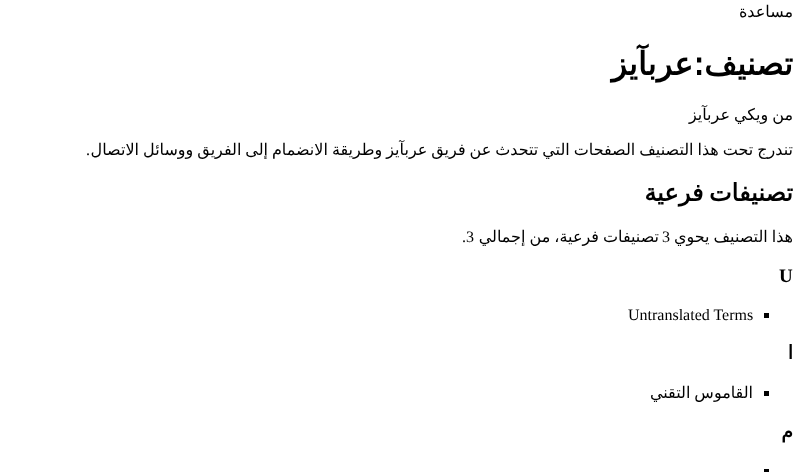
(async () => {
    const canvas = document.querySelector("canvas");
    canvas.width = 793;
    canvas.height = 472;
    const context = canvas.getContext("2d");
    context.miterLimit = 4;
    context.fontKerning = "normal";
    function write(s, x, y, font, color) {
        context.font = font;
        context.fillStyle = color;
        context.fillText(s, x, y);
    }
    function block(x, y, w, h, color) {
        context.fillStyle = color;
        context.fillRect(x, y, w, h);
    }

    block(0, 0, 793, 472, "rgb(255, 255, 255)");
    context.direction = "rtl";
    write("مساعدة", 793, 17, "16px DejaVu Sans", "rgb(0, 0, 0)");
    write("تصنيف:عربآيز", 793, 75, "bold 32px DejaVu Sans", "rgb(0, 0, 0)");
    context.wordSpacing = "-1.1px";
    write("من ويكي عربآيز", 793, 120, "16px DejaVu Sans", "rgb(0, 0, 0)");
    write("تندرج تحت هذا التصنيف الصفحات التي تتحدث عن فريق عربآيز وطريقة الانضمام إلى الفريق ووسائل الاتصال", 793, 155, "16px DejaVu Sans", "rgb(0, 0, 0)");
    context.wordSpacing = "0px";
    write(".", 90, 155, "16px Liberation Serif", "rgb(0, 0, 0)");
    context.wordSpacing = "-2px";
    write("تصنيفات فرعية", 793, 201, "bold 24px DejaVu Sans", "rgb(0, 0, 0)");
    context.wordSpacing = "-1.1px";
    write("هذا التصنيف يحوي", 793, 242, "16px DejaVu Sans", "rgb(0, 0, 0)");
    context.wordSpacing = "0px";
    context.direction = "ltr";
    write("3", 662, 242, "16px Liberation Serif", "rgb(0, 0, 0)");
    context.wordSpacing = "-1px";
    context.direction = "rtl";
    write("تصنيفات فرعية، من إجمالي", 659, 242, "16px DejaVu Sans", "rgb(0, 0, 0)");
    context.wordSpacing = "0px";
    context.direction = "ltr";
    write(".3", 462, 242, "16px Liberation Serif", "rgb(0, 0, 0)");
    write("U", 779, 282, "bold 19px Liberation Serif", "rgb(0, 0, 0)");
    block(764, 313, 5, 5, "rgb(0, 0, 0)");
    write("Untranslated Terms", 628, 320, "16px Liberation Serif", "rgb(0, 0, 0)");
    context.direction = "rtl";
    write("ا", 793, 359, "bold 19px DejaVu Sans", "rgb(0, 0, 0)");
    block(764, 391, 5, 5, "rgb(0, 0, 0)");
    context.wordSpacing = "-1.1px";
    write("القاموس التقني", 753, 398, "16px DejaVu Sans", "rgb(0, 0, 0)");
    context.wordSpacing = "0px";
    write("م", 793, 438, "bold 19px DejaVu Sans", "rgb(0, 0, 0)");
    block(764, 469, 5, 3, "rgb(0, 0, 0)");
})();
